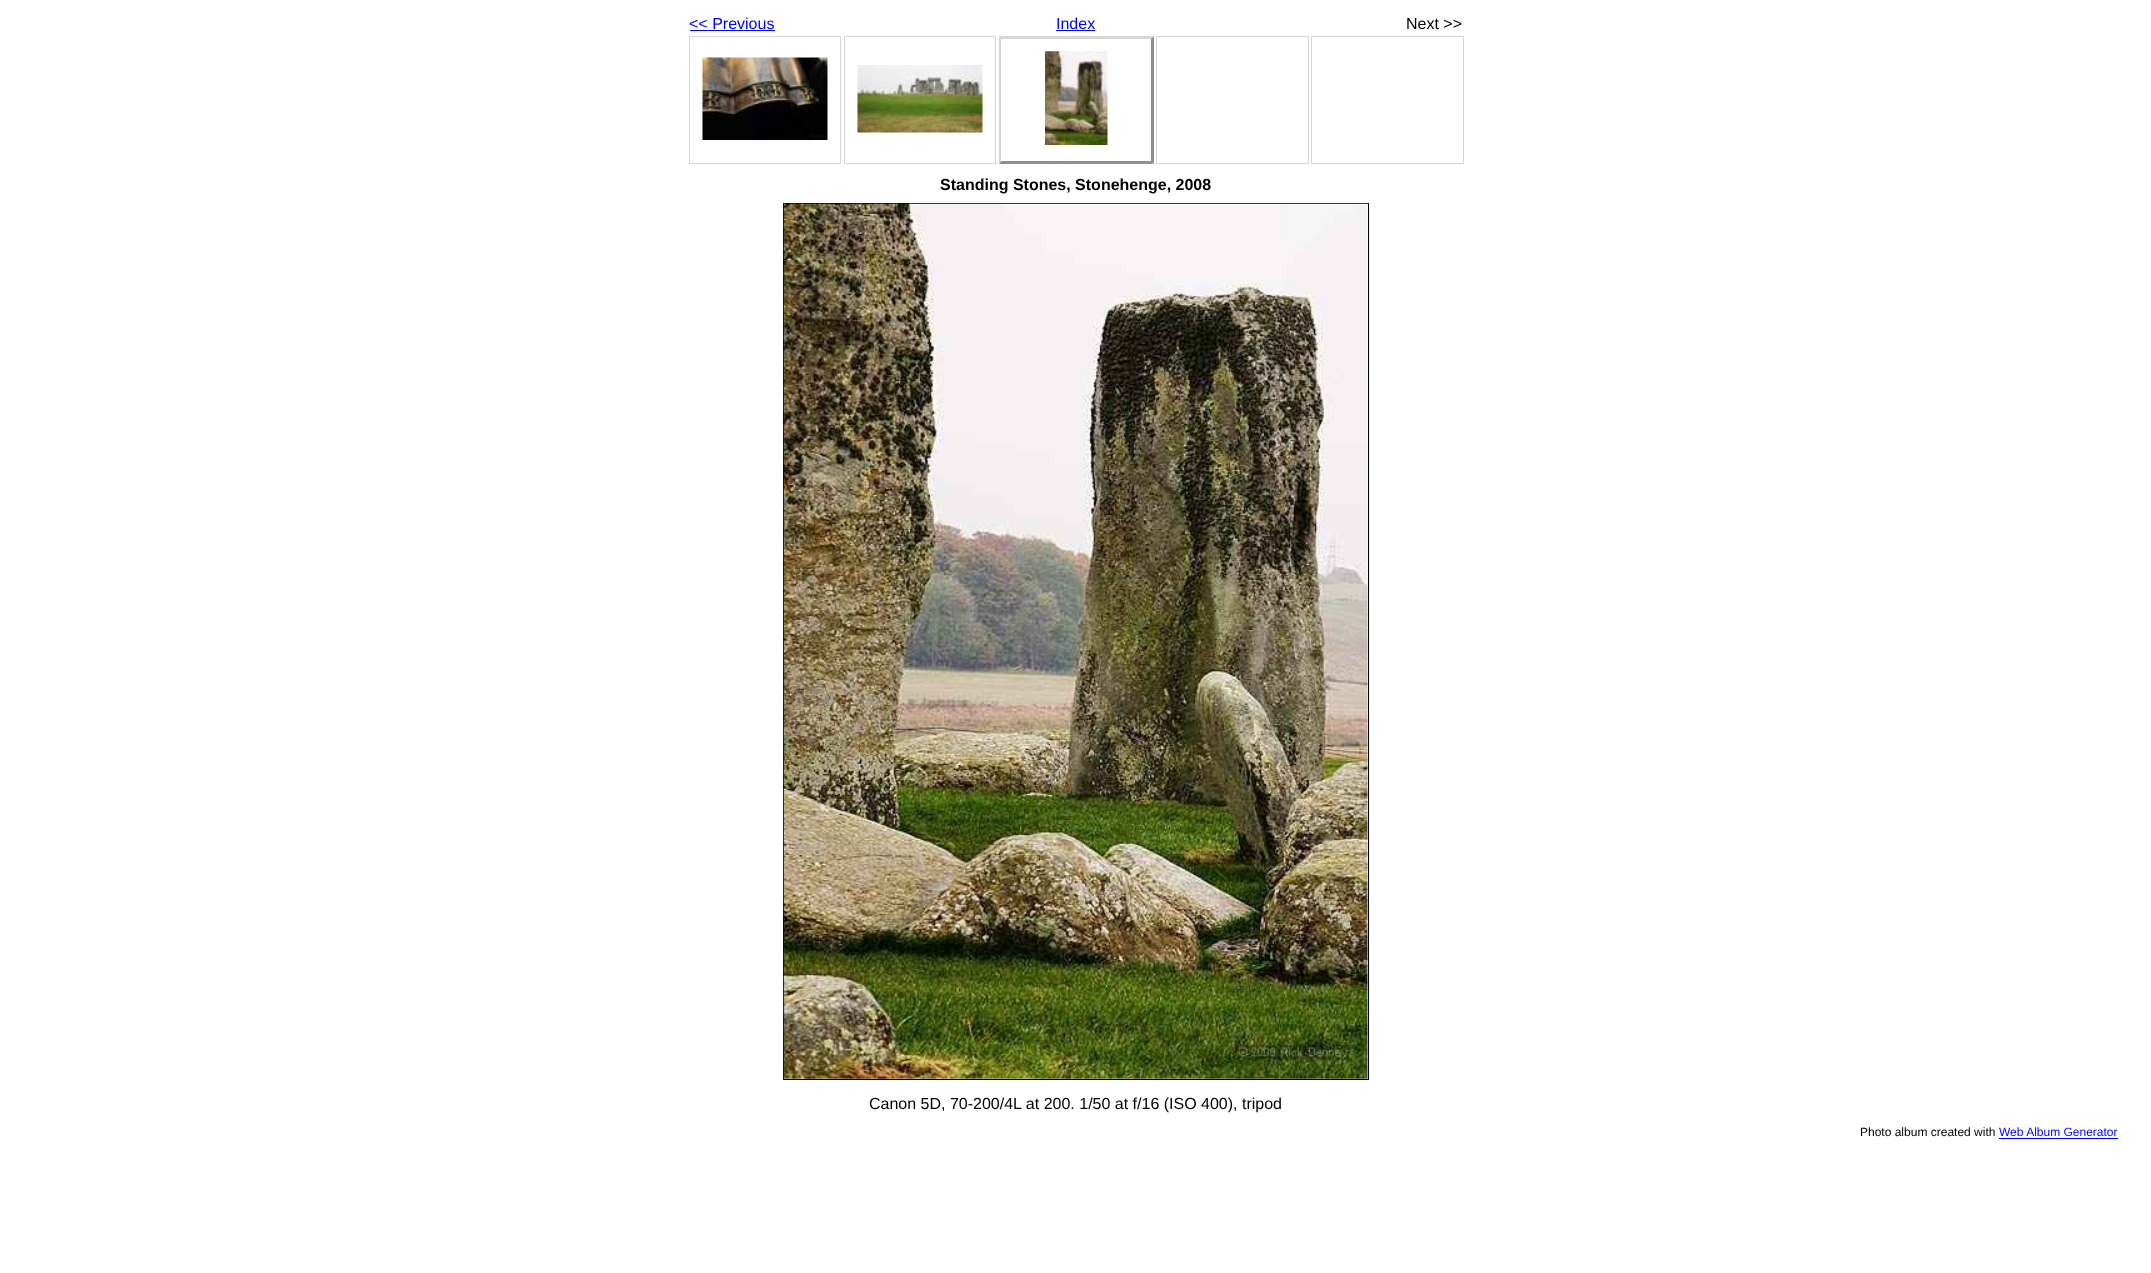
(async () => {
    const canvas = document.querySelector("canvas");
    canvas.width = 2151;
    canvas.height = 1273;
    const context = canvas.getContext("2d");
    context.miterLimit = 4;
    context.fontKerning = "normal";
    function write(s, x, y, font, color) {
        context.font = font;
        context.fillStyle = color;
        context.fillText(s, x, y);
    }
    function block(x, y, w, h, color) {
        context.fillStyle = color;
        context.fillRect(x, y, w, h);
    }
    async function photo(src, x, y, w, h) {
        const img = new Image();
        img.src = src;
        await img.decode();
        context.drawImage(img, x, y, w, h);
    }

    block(0, 0, 2151, 1273, "rgb(255, 255, 255)");
    write("<< Previous", 689, 29, "16px Liberation Sans", "rgb(0, 0, 255)");
    block(690, 30, 85, 1, "rgb(0, 0, 255)");
    write("Index", 1056, 29, "16px Liberation Sans", "rgb(0, 0, 255)");
    block(1056, 30, 39, 1, "rgb(0, 0, 255)");
    write("Next >>", 1406, 29, "16px Liberation Sans", "rgb(0, 0, 0)");
    context.strokeStyle = "rgb(215, 215, 215)";
    context.strokeRect(689.5, 36.5, 151, 127);
    await photo("media/1.png", 702, 57, 126, 83);
    context.strokeRect(844.5, 36.5, 151, 127);
    await photo("media/2.png", 857, 65, 126, 68);
    context.fillStyle = "rgb(215, 215, 215)";
    context.beginPath();
    context.moveTo(999, 36);
    context.lineTo(1154, 36);
    context.lineTo(1151, 39);
    context.lineTo(1001, 39);
    context.closePath();
    context.fill();
    context.fillStyle = "rgb(143, 143, 143)";
    context.beginPath();
    context.moveTo(1154, 36);
    context.lineTo(1154, 164);
    context.lineTo(1151, 161);
    context.lineTo(1151, 39);
    context.closePath();
    context.fill();
    context.beginPath();
    context.moveTo(1154, 164);
    context.lineTo(999, 164);
    context.lineTo(1001, 161);
    context.lineTo(1151, 161);
    context.closePath();
    context.fill();
    context.fillStyle = "rgb(215, 215, 215)";
    context.beginPath();
    context.moveTo(999, 164);
    context.lineTo(999, 36);
    context.lineTo(1001, 39);
    context.lineTo(1001, 161);
    context.closePath();
    context.fill();
    await photo("media/3.png", 1045, 51, 63, 94);
    context.strokeRect(1156.5, 36.5, 152, 127);
    context.strokeRect(1311.5, 36.5, 152, 127);
    write("Standing Stones, Stonehenge, 2008", 940, 190, "bold 16px Liberation Sans", "rgb(0, 0, 0)");
    context.strokeStyle = "rgb(0, 0, 0)";
    context.strokeRect(783.5, 203.5, 585, 876);
    await photo("media/4.png", 783, 203, 585, 876);
    write("Canon 5D, 70-200/4L at 200. 1/50 at f/16 (ISO 400), tripod", 869, 1109, "16px Liberation Sans", "rgb(0, 0, 0)");
    write("Photo album created with", 1860, 1136, "12px Liberation Sans", "rgb(0, 0, 0)");
    write("Web Album Generator", 1999, 1136, "12px Liberation Sans", "rgb(0, 0, 255)");
    block(1999, 1138, 119, 1, "rgb(0, 0, 255)");
})();
